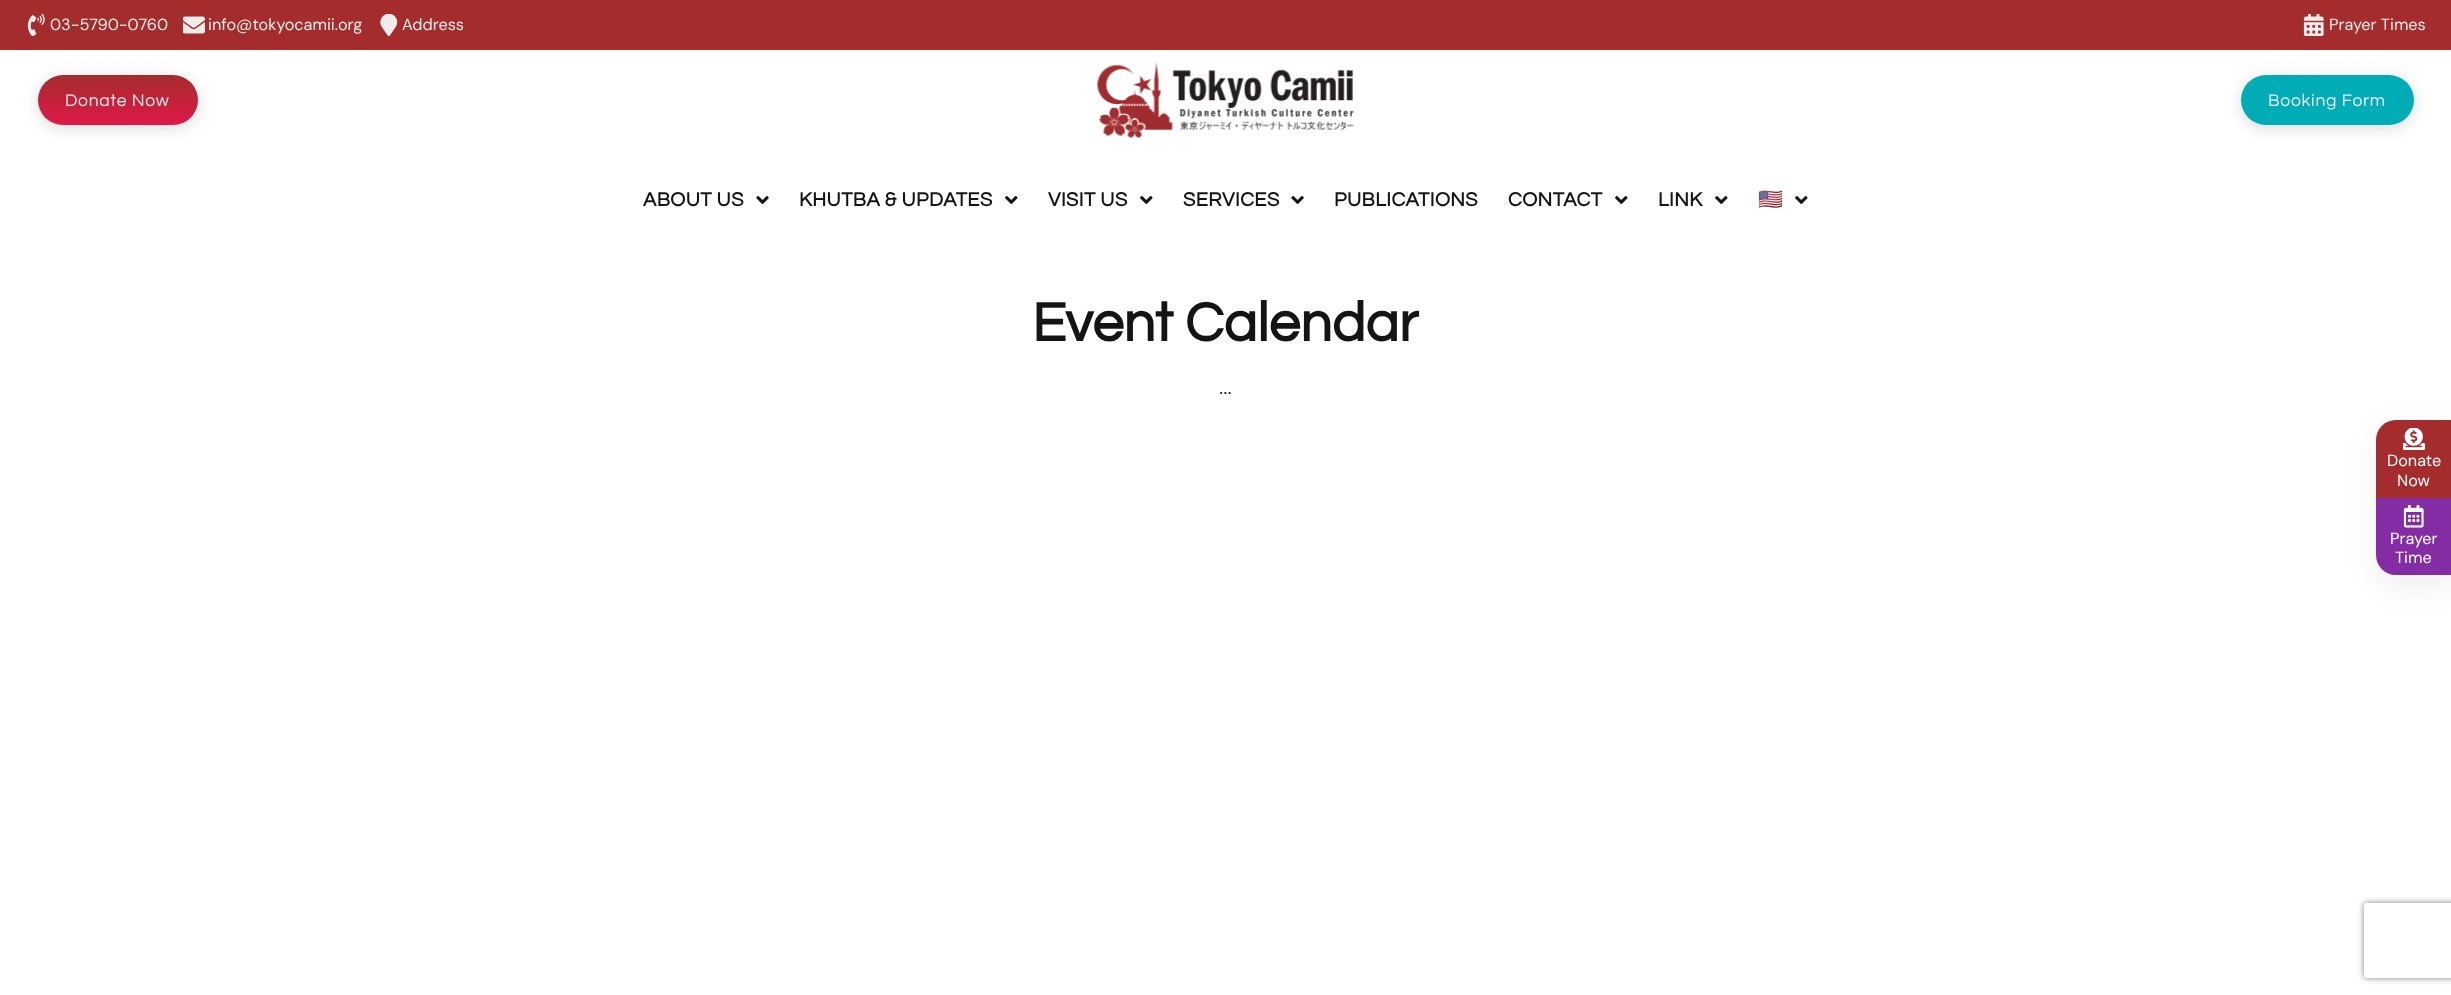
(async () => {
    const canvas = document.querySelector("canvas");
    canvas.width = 2451;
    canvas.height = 995;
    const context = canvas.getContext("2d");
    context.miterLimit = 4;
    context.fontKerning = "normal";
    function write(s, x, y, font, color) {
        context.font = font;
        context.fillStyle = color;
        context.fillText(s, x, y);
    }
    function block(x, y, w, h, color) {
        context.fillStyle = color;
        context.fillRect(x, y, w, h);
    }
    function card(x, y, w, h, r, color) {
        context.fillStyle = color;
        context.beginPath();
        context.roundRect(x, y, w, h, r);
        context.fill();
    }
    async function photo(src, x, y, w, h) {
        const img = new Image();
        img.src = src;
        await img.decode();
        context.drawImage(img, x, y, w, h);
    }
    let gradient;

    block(0, 0, 2451, 995, "rgb(255, 255, 255)");
    block(0, 0, 2451, 50, "rgb(164, 44, 44)");
    await photo("media/1.png", 27, 14, 18, 22);
    write("03-5790-0760", 50, 30, "16.25px DM Sans", "rgb(238, 237, 236)");
    await photo("media/2.png", 183, 16, 22, 18);
    write("info@tokyocamii.org", 208, 30, "16.25px DM Sans", "rgb(238, 237, 236)");
    await photo("media/3.png", 380, 14, 18, 22);
    write("Address", 402, 30, "16.25px DM Sans", "rgb(238, 237, 236)");
    await photo("media/4.png", 2303, 14, 21, 22);
    write("Prayer Times", 2329, 30, "16.25px DM Sans", "rgb(238, 237, 236)");
    context.fillStyle = "rgba(0, 0, 0, 0.14)";
    context.filter = "blur(7.5px)";
    context.beginPath();
    context.roundRect(38, 78, 160, 50, 25);
    context.fill();
    context.filter = "none";
    gradient = context.createLinearGradient(118, 75, 118, 125);
    gradient.addColorStop(0, "rgb(164, 44, 44)");
    gradient.addColorStop(1, "rgb(223, 24, 73)");
    context.fillStyle = gradient;
    context.beginPath();
    context.roundRect(38, 75, 160, 50, 25);
    context.fill();
    context.letterSpacing = "0.75px";
    write("Donate Now", 65, 106, "17.5px Questrial", "rgb(238, 237, 236)");
    await photo("media/5.png", 1097, 62, 257, 76);
    context.fillStyle = "rgba(0, 0, 0, 0.14)";
    context.filter = "blur(7.5px)";
    context.beginPath();
    context.roundRect(2241, 78, 173, 50, 25);
    context.fill();
    context.filter = "none";
    card(2241, 75, 173, 50, 25, "rgb(0, 173, 182)");
    write("Booking Form", 2268, 106, "17.5px Questrial", "rgb(238, 237, 236)");
    context.letterSpacing = "0.4px";
    write("ABOUT US", 643, 206, "bold 20px Questrial", "rgb(20, 20, 20)");
    await photo("media/6.png", 756, 196, 13, 8);
    write("KHUTBA & UPDATES", 799, 206, "bold 20px Questrial", "rgb(20, 20, 20)");
    await photo("media/7.png", 1005, 196, 13, 8);
    write("VISIT US", 1048, 206, "bold 20px Questrial", "rgb(20, 20, 20)");
    await photo("media/7.png", 1140, 196, 13, 8);
    write("SERVICES", 1183, 206, "bold 20px Questrial", "rgb(20, 20, 20)");
    await photo("media/6.png", 1291, 196, 13, 8);
    write("PUBLICATIONS", 1334, 206, "bold 20px Questrial", "rgb(20, 20, 20)");
    write("CONTACT", 1508, 206, "bold 20px Questrial", "rgb(20, 20, 20)");
    await photo("media/7.png", 1615, 196, 13, 8);
    write("LINK", 1658, 206, "bold 20px Questrial", "rgb(20, 20, 20)");
    await photo("media/7.png", 1715, 196, 13, 8);
    write("🇺🇸", 1758, 206, "bold 20px Noto Color Emoji", "rgb(20, 20, 20)");
    await photo("media/7.png", 1795, 196, 13, 8);
    context.letterSpacing = "0px";
    write("Event Calendar", 1032, 341, "bold 56.25px Questrial", "rgb(20, 20, 20)");
    write("...", 1219, 394, "20px Montserrat", "rgb(20, 20, 20)");
    context.fillStyle = "rgba(0, 0, 0, 0.06)";
    context.filter = "blur(14.5px)";
    context.beginPath();
    context.roundRect(2375, 426, 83, 163, 24);
    context.fill();
    context.filter = "none";
    context.fillStyle = "rgb(164, 44, 44)";
    context.beginPath();
    context.roundRect(2376, 420, 75, 78, [20, 0, 0, 0]);
    context.fill();
    await photo("media/8.png", 2403, 428, 22, 22);
    write("Donate", 2387, 466, "16.25px DM Sans", "rgb(255, 255, 255)");
    write("Now", 2397, 486, "16.25px DM Sans", "rgb(255, 255, 255)");
    context.fillStyle = "rgb(132, 44, 164)";
    context.beginPath();
    context.roundRect(2376, 498, 75, 77, [0, 0, 0, 20]);
    context.fill();
    await photo("media/9.png", 2403, 505, 21, 23);
    write("Prayer", 2390, 544, "16.25px DM Sans", "rgb(255, 255, 255)");
    write("Time", 2395, 563, "16.25px DM Sans", "rgb(255, 255, 255)");
    context.save();
    context.beginPath();
    context.moveTo(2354, 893);
    context.lineTo(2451, 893);
    context.lineTo(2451, 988);
    context.lineTo(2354, 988);
    context.closePath();
    context.moveTo(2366.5, 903);
    context.lineTo(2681.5, 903);
    context.bezierCurveTo(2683, 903, 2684, 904, 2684, 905.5);
    context.lineTo(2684, 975.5);
    context.bezierCurveTo(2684, 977, 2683, 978, 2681.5, 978);
    context.lineTo(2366.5, 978);
    context.bezierCurveTo(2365, 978, 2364, 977, 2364, 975.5);
    context.lineTo(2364, 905.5);
    context.bezierCurveTo(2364, 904, 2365, 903, 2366.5, 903);
    context.closePath();
    context.clip("evenodd");
    context.fillStyle = "rgb(128, 128, 128)";
    context.filter = "blur(3px)";
    context.beginPath();
    context.roundRect(2364, 903, 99, 75, 2.5);
    context.fill();
    context.filter = "none";
    context.restore();
})();
